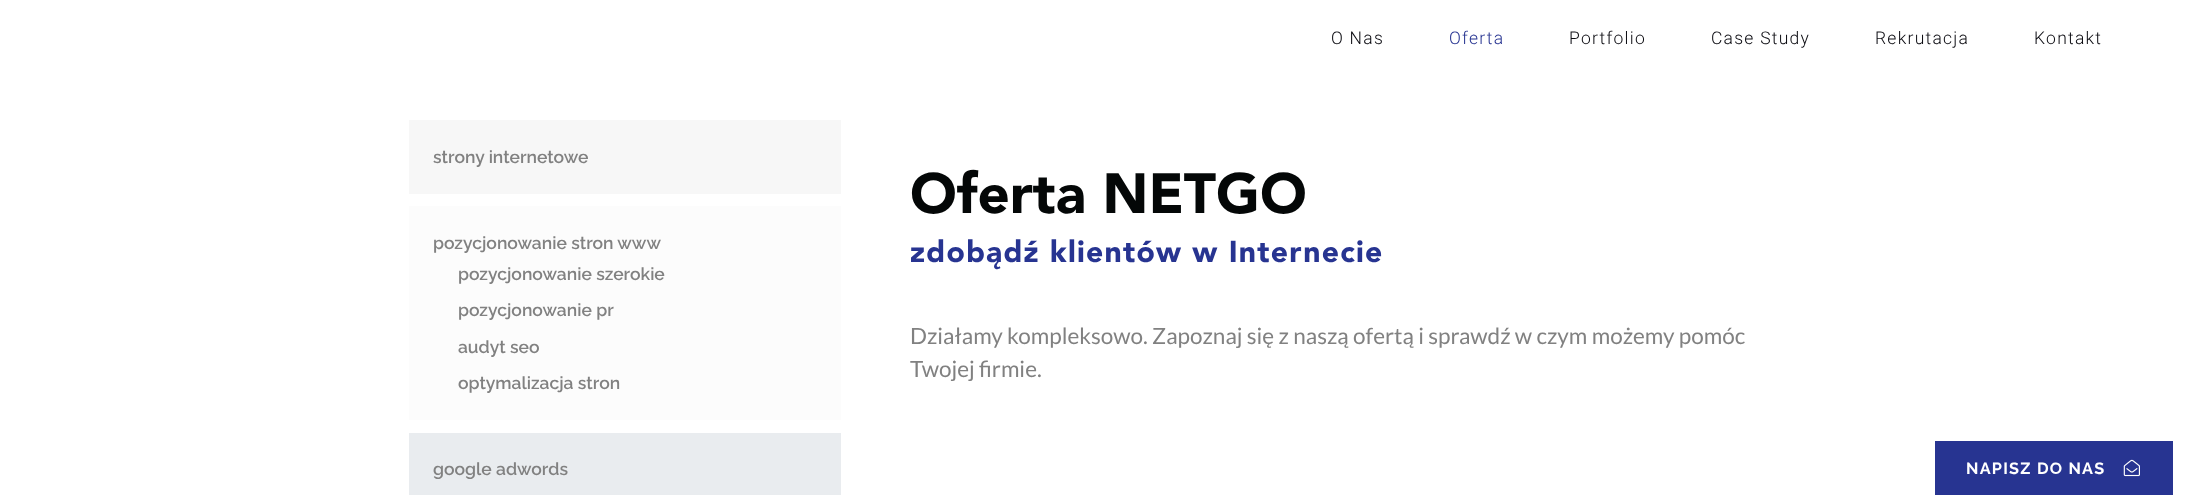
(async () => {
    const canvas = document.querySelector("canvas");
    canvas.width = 2191;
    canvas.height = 495;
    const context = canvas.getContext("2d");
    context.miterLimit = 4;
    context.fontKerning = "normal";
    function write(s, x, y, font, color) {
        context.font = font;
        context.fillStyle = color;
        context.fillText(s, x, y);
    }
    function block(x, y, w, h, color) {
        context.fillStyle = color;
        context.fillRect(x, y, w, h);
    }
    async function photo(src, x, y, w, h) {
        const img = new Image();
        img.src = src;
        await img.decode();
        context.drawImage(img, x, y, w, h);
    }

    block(0, 0, 2191, 495, "rgb(255, 255, 255)");
    context.letterSpacing = "1.25px";
    write("O Nas", 1331, 44, "300 17.5px Roboto", "rgb(11, 11, 17)");
    write("Oferta", 1449, 44, "300 17.5px Roboto", "rgb(39, 52, 145)");
    write("Portfolio", 1569, 44, "300 17.5px Roboto", "rgb(11, 11, 17)");
    write("Case Study", 1711, 44, "300 17.5px Roboto", "rgb(11, 11, 17)");
    write("Rekrutacja", 1875, 44, "300 17.5px Roboto", "rgb(11, 11, 17)");
    write("Kontakt", 2034, 44, "300 17.5px Roboto", "rgb(11, 11, 17)");
    block(409, 120, 432, 74, "rgb(247, 247, 247)");
    context.letterSpacing = "0px";
    write("strony internetowe", 433, 163, "600 17.5px Raleway", "rgb(129, 129, 129)");
    block(409, 206, 432, 214, "rgb(252, 252, 252)");
    write("pozycjonowanie stron www", 433, 249, "600 17.5px Raleway", "rgb(129, 129, 129)");
    write("pozycjonowanie szerokie", 458, 280, "600 17.5px Raleway", "rgb(129, 129, 129)");
    write("pozycjonowanie pr", 458, 316, "600 17.5px Raleway", "rgb(129, 129, 129)");
    write("audyt seo", 458, 353, "600 17.5px Raleway", "rgb(129, 129, 129)");
    write("optymalizacja stron", 458, 389, "600 17.5px Raleway", "rgb(129, 129, 129)");
    block(409, 433, 432, 62, "rgb(233, 236, 239)");
    write("google adwords", 433, 475, "600 17.5px Raleway", "rgb(129, 129, 129)");
    write("Oferta NETGO", 910, 213, "900 56.25px Avenir", "rgb(4, 7, 7)");
    context.letterSpacing = "1.25px";
    write("zdobądź klientów w Internecie", 910, 262, "900 30px Avenir", "rgb(39, 52, 145)");
    context.letterSpacing = "0px";
    write("Działamy kompleksowo. Zapoznaj się z naszą ofertą i sprawdź w czym możemy pomóc", 910, 344, "22.5px Lato", "rgb(129, 129, 129)");
    write("Twojej firmie.", 910, 377, "22.5px Lato", "rgb(129, 129, 129)");
    block(1935, 441, 238, 54, "rgb(39, 52, 145)");
    context.letterSpacing = "1.25px";
    write("NAPISZ DO NAS", 1966, 474, "bold 16.25px Raleway", "rgb(255, 255, 255)");
    await photo("media/1.png", 2123, 459, 17, 18);
})();
